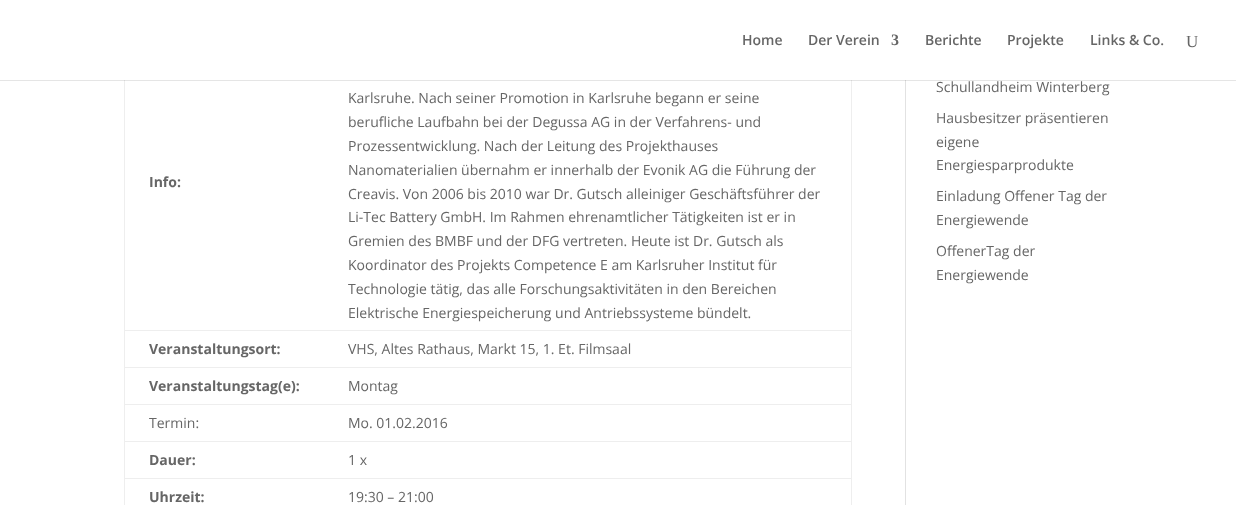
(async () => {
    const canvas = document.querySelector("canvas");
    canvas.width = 1236;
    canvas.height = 505;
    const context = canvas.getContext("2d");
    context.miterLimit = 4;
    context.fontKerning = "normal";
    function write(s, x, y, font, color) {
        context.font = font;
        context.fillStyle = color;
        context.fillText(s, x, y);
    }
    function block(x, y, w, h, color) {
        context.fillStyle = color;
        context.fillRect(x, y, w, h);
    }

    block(0, 0, 1236, 505, "rgb(255, 255, 255)");
    block(905, 80, 1, 425, "rgb(226, 226, 226)");
    block(851, 80, 1, 425, "rgb(238, 238, 238)");
    block(124, 80, 1, 425, "rgb(238, 238, 238)");
    block(0, 80, 1236, 1, "rgba(0, 0, 0, 0.1)");
    write("Home", 742, 45, "600 14px Open Sans", "rgb(102, 102, 102)");
    write("Der Verein", 808, 45, "600 14px Open Sans", "rgb(102, 102, 102)");
    write("3", 891, 45, "bold 16px Liberation Serif", "rgb(102, 102, 102)");
    write("Berichte", 925, 45, "600 14px Open Sans", "rgb(102, 102, 102)");
    write("Projekte", 1007, 45, "600 14px Open Sans", "rgb(102, 102, 102)");
    write("Links & Co.", 1090, 45, "600 14px Open Sans", "rgb(102, 102, 102)");
    write("U", 1186, 47, "17px Liberation Serif", "rgb(102, 102, 102)");
    write("Info:", 149, 187, "bold 14px Open Sans", "rgb(102, 102, 102)");
    write("Karlsruhe. Nach seiner Promotion in Karlsruhe begann er seine", 348, 103, "14px Open Sans", "rgb(102, 102, 102)");
    write("berufliche Laufbahn bei der Degussa AG in der Verfahrens- und", 348, 127, "14px Open Sans", "rgb(102, 102, 102)");
    write("Prozessentwicklung. Nach der Leitung des Projekthauses", 348, 151, "14px Open Sans", "rgb(102, 102, 102)");
    write("Nanomaterialien übernahm er innerhalb der Evonik AG die Führung der", 348, 175, "14px Open Sans", "rgb(102, 102, 102)");
    write("Creavis. Von 2006 bis 2010 war Dr. Gutsch alleiniger Geschäftsführer der", 348, 199, "14px Open Sans", "rgb(102, 102, 102)");
    write("Li-Tec Battery GmbH. Im Rahmen ehrenamtlicher Tätigkeiten ist er in", 348, 222, "14px Open Sans", "rgb(102, 102, 102)");
    write("Gremien des BMBF und der DFG vertreten. Heute ist Dr. Gutsch als", 348, 246, "14px Open Sans", "rgb(102, 102, 102)");
    write("Koordinator des Projekts Competence E am Karlsruher Institut für", 348, 270, "14px Open Sans", "rgb(102, 102, 102)");
    write("Technologie tätig, das alle Forschungsaktivitäten in den Bereichen", 348, 294, "14px Open Sans", "rgb(102, 102, 102)");
    write("Elektrische Energiespeicherung und Antriebssysteme bündelt.", 348, 318, "14px Open Sans", "rgb(102, 102, 102)");
    write("Veranstaltungsort:", 149, 354, "bold 14px Open Sans", "rgb(102, 102, 102)");
    block(124, 330, 728, 1, "rgb(238, 238, 238)");
    write("VHS, Altes Rathaus, Markt 15, 1. Et. Filmsaal", 348, 354, "14px Open Sans", "rgb(102, 102, 102)");
    write("Veranstaltungstag(e):", 149, 391, "bold 14px Open Sans", "rgb(102, 102, 102)");
    block(124, 367, 728, 1, "rgb(238, 238, 238)");
    write("Montag", 348, 391, "14px Open Sans", "rgb(102, 102, 102)");
    write("Termin:", 149, 428, "14px Open Sans", "rgb(102, 102, 102)");
    block(124, 404, 728, 1, "rgb(238, 238, 238)");
    write("Mo. 01.02.2016", 348, 428, "14px Open Sans", "rgb(102, 102, 102)");
    write("Dauer:", 149, 465, "bold 14px Open Sans", "rgb(102, 102, 102)");
    block(124, 441, 728, 1, "rgb(238, 238, 238)");
    write("1 x", 348, 465, "14px Open Sans", "rgb(102, 102, 102)");
    write("Uhrzeit:", 149, 502, "bold 14px Open Sans", "rgb(102, 102, 102)");
    block(124, 478, 728, 1, "rgb(238, 238, 238)");
    write("19:30 – 21:00", 348, 502, "14px Open Sans", "rgb(102, 102, 102)");
    write("Schullandheim Winterberg", 936, 92, "14px Open Sans", "rgb(102, 102, 102)");
    write("Hausbesitzer präsentieren", 936, 123, "14px Open Sans", "rgb(102, 102, 102)");
    write("eigene", 936, 147, "14px Open Sans", "rgb(102, 102, 102)");
    write("Energiesparprodukte", 936, 170, "14px Open Sans", "rgb(102, 102, 102)");
    write("Einladung Offener Tag der", 936, 201, "14px Open Sans", "rgb(102, 102, 102)");
    write("Energiewende", 936, 225, "14px Open Sans", "rgb(102, 102, 102)");
    write("OffenerTag der", 936, 256, "14px Open Sans", "rgb(102, 102, 102)");
    write("Energiewende", 936, 280, "14px Open Sans", "rgb(102, 102, 102)");
})();
